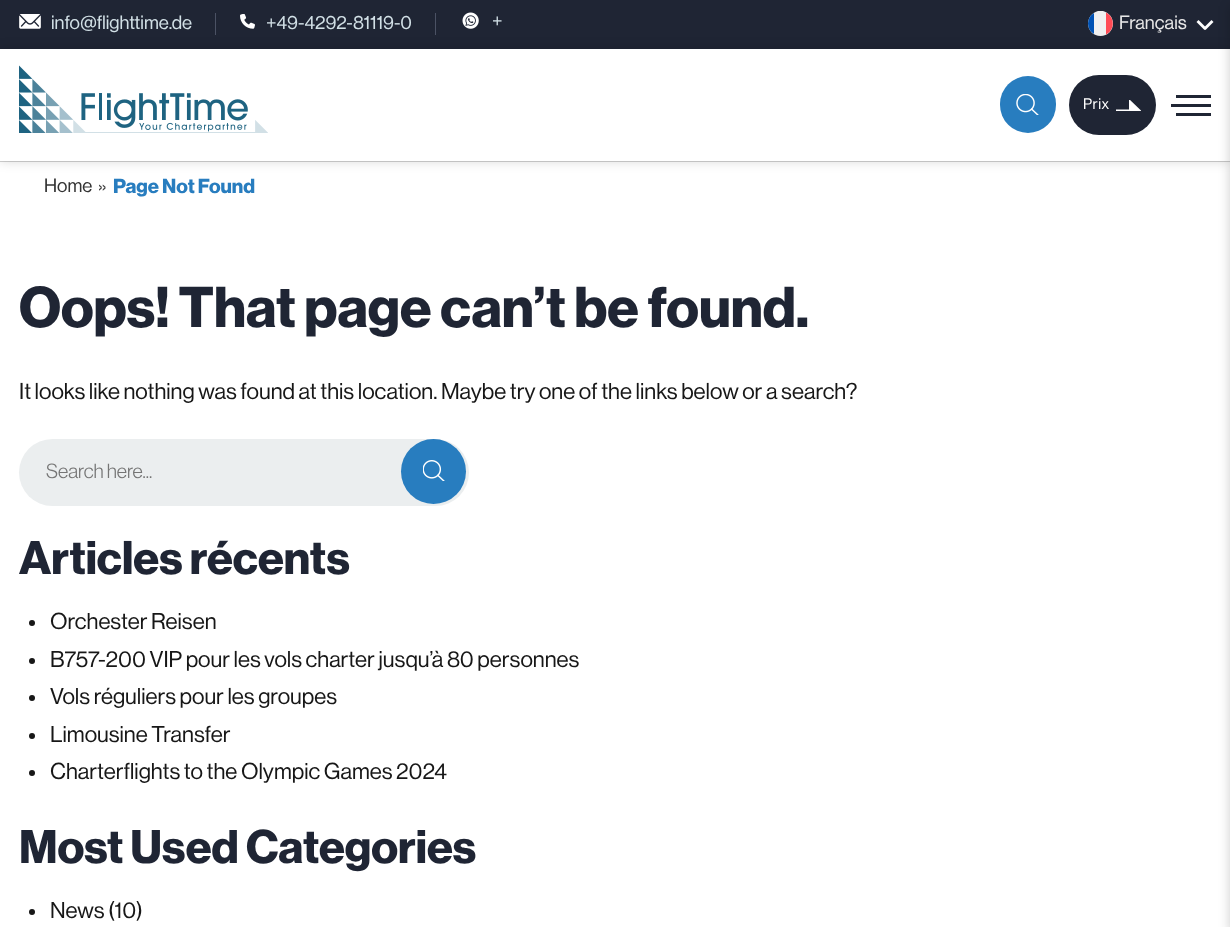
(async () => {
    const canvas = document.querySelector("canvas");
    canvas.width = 1230;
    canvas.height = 927;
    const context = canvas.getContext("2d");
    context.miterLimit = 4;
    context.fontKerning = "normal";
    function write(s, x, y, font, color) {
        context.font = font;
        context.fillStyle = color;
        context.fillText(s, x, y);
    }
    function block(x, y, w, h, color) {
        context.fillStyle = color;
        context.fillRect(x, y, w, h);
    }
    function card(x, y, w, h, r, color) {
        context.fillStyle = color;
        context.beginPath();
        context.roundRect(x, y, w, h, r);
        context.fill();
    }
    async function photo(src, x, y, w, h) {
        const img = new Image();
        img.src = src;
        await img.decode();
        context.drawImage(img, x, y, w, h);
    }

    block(0, 0, 1230, 927, "rgb(255, 255, 255)");
    block(0, 0, 1230, 49, "rgb(31, 37, 52)");
    block(0, 161, 1230, 1, "rgb(210, 210, 210)");
    context.save();
    context.beginPath();
    context.moveTo(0, 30);
    context.lineTo(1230, 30);
    context.lineTo(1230, 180);
    context.lineTo(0, 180);
    context.closePath();
    context.moveTo(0, 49);
    context.lineTo(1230, 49);
    context.lineTo(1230, 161);
    context.lineTo(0, 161);
    context.closePath();
    context.clip("evenodd");
    context.fillStyle = "rgba(0, 0, 0, 0.16)";
    context.filter = "blur(6px)";
    context.beginPath();
    context.rect(0, 49, 1230, 112);
    context.fill();
    context.filter = "none";
    context.restore();
    block(215, 13, 1, 22, "rgb(75, 82, 100)");
    await photo("media/1.png", 19, 14, 22, 15);
    write("info@flighttime.de", 51, 29, "18.75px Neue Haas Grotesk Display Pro", "rgb(210, 224, 230)");
    block(435, 13, 1, 22, "rgb(75, 82, 100)");
    await photo("media/2.png", 240, 14, 15, 15);
    write("+49-4292-81119-0", 266, 29, "18.75px Neue Haas Grotesk Display Pro", "rgb(210, 224, 230)");
    await photo("media/3.png", 462, 12, 17, 17);
    write("+", 492, 27, "18.75px Neue Haas Grotesk Display Pro", "rgb(210, 224, 230)");
    context.fillStyle = "rgb(240, 240, 240)";
    context.beginPath();
    context.moveTo(1103, 11);
    context.bezierCurveTo(1108.5, 12.5, 1113, 17.5, 1113, 23.5);
    context.bezierCurveTo(1113, 30.5, 1107.5, 36, 1100.5, 36);
    context.bezierCurveTo(1093.5, 36, 1088, 30.5, 1088, 23.5);
    context.bezierCurveTo(1088, 17.5, 1092.5, 12.5, 1098, 11);
    context.closePath();
    context.fill();
    context.fillStyle = "rgb(255, 75, 85)";
    context.beginPath();
    context.moveTo(1106, 12.5);
    context.lineTo(1106, 34.5);
    context.bezierCurveTo(1115, 30, 1115, 17, 1106, 12.5);
    context.closePath();
    context.fill();
    context.fillStyle = "rgb(0, 82, 180)";
    context.beginPath();
    context.moveTo(1094, 13);
    context.bezierCurveTo(1086, 17.5, 1086, 29.5, 1094, 34);
    context.closePath();
    context.fill();
    write("Français", 1119, 29, "18.75px Neue Haas Grotesk Display Pro", "rgb(232, 232, 232)");
    context.fillStyle = "rgb(255, 255, 255)";
    context.beginPath();
    context.moveTo(1211.5, 20);
    context.lineTo(1213.5, 22);
    context.lineTo(1205.5, 30);
    context.lineTo(1203.5, 28);
    context.closePath();
    context.fill();
    context.beginPath();
    context.moveTo(1198.5, 20);
    context.lineTo(1206.5, 28);
    context.lineTo(1204.5, 30);
    context.lineTo(1196.5, 22);
    context.closePath();
    context.fill();
    await photo("media/4.png", 19, 65, 249, 68);
    card(1000, 76, 56, 57, 28, "rgb(40, 125, 191)");
    await photo("media/5.png", 1016, 94, 23, 21);
    card(1069, 75, 87, 60, 30, "rgb(31, 37, 52)");
    context.letterSpacing = "0.5px";
    write("Prix", 1083, 109, "15px Neue Haas Grotesk Display Pro", "rgb(255, 255, 255)");
    context.save();
    context.beginPath();
    context.rect(1116, 100, 25, 11);
    context.clip();
    context.beginPath();
    context.moveTo(1107.5, 111);
    context.lineTo(1107.5, 109.5);
    context.lineTo(1129, 109.5);
    context.lineTo(1129, 99);
    context.lineTo(1141.5, 111);
    context.lineTo(1138.5, 111);
    context.closePath();
    context.fill();
    context.restore();
    block(1176, 95, 35, 3, "rgb(31, 37, 52)");
    block(1171, 104, 40, 3, "rgb(31, 37, 52)");
    block(1176, 113, 35, 3, "rgb(31, 37, 52)");
    context.fillStyle = "rgba(0, 0, 0, 0.2)";
    context.filter = "blur(6px)";
    context.beginPath();
    context.rect(1230, 6, 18, 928);
    context.fill();
    context.filter = "none";
    context.letterSpacing = "0px";
    write("Home", 44, 192, "18.75px Neue Haas Grotesk Display Pro", "rgb(51, 51, 51)");
    write("»", 98, 193, "20px Neue Haas Grotesk Display Pro", "rgb(64, 64, 64)");
    write("Page Not Found", 113, 193, "bold 20px Neue Haas Grotesk Display Pro", "rgb(40, 125, 191)");
    write("Oops! That page can’t be found.", 19, 327, "bold 56.25px Neue Haas Grotesk Display Pro", "rgb(31, 37, 52)");
    write("It looks like nothing was found at this location. Maybe try one of the links below or a search?", 19, 399, "22.5px Neue Haas Grotesk Display Pro", "rgb(23, 23, 23)");
    card(19, 439, 450, 67, 33.5, "rgb(235, 238, 239)");
    write("Search here...", 46, 478, "300 20px Neue Haas Grotesk Display Pro", "rgb(117, 117, 117)");
    context.fillStyle = "rgb(40, 125, 191)";
    context.beginPath();
    context.arc(433.5, 471.5, 32.5, 0, Math.PI * 2);
    context.fill();
    await photo("media/6.png", 423, 460, 22, 21);
    write("Articles récents", 19, 574, "bold 46.25px Neue Haas Grotesk Display Pro", "rgb(31, 37, 52)");
    context.fillStyle = "rgb(23, 23, 23)";
    context.beginPath();
    context.arc(32, 623, 3, 0, Math.PI * 2);
    context.fill();
    write("Orchester Reisen", 50, 629, "22.5px Neue Haas Grotesk Display Pro", "rgb(23, 23, 23)");
    context.beginPath();
    context.arc(32, 661, 3, 0, Math.PI * 2);
    context.fill();
    write("B757-200 VIP pour les vols charter jusqu’à 80 personnes", 50, 667, "22.5px Neue Haas Grotesk Display Pro", "rgb(23, 23, 23)");
    context.beginPath();
    context.arc(32, 698, 3, 0, Math.PI * 2);
    context.fill();
    write("Vols réguliers pour les groupes", 50, 704, "22.5px Neue Haas Grotesk Display Pro", "rgb(23, 23, 23)");
    context.beginPath();
    context.arc(32, 736, 3, 0, Math.PI * 2);
    context.fill();
    write("Limousine Transfer", 50, 742, "22.5px Neue Haas Grotesk Display Pro", "rgb(23, 23, 23)");
    context.beginPath();
    context.arc(32, 773, 3, 0, Math.PI * 2);
    context.fill();
    write("Charterflights to the Olympic Games 2024", 50, 779, "22.5px Neue Haas Grotesk Display Pro", "rgb(23, 23, 23)");
    write("Most Used Categories", 19, 863, "bold 46.25px Neue Haas Grotesk Display Pro", "rgb(31, 37, 52)");
    context.fillStyle = "rgb(23, 23, 23)";
    context.beginPath();
    context.arc(32, 912, 3, 0, Math.PI * 2);
    context.fill();
    write("News (10)", 50, 918, "22.5px Neue Haas Grotesk Display Pro", "rgb(23, 23, 23)");
})();
